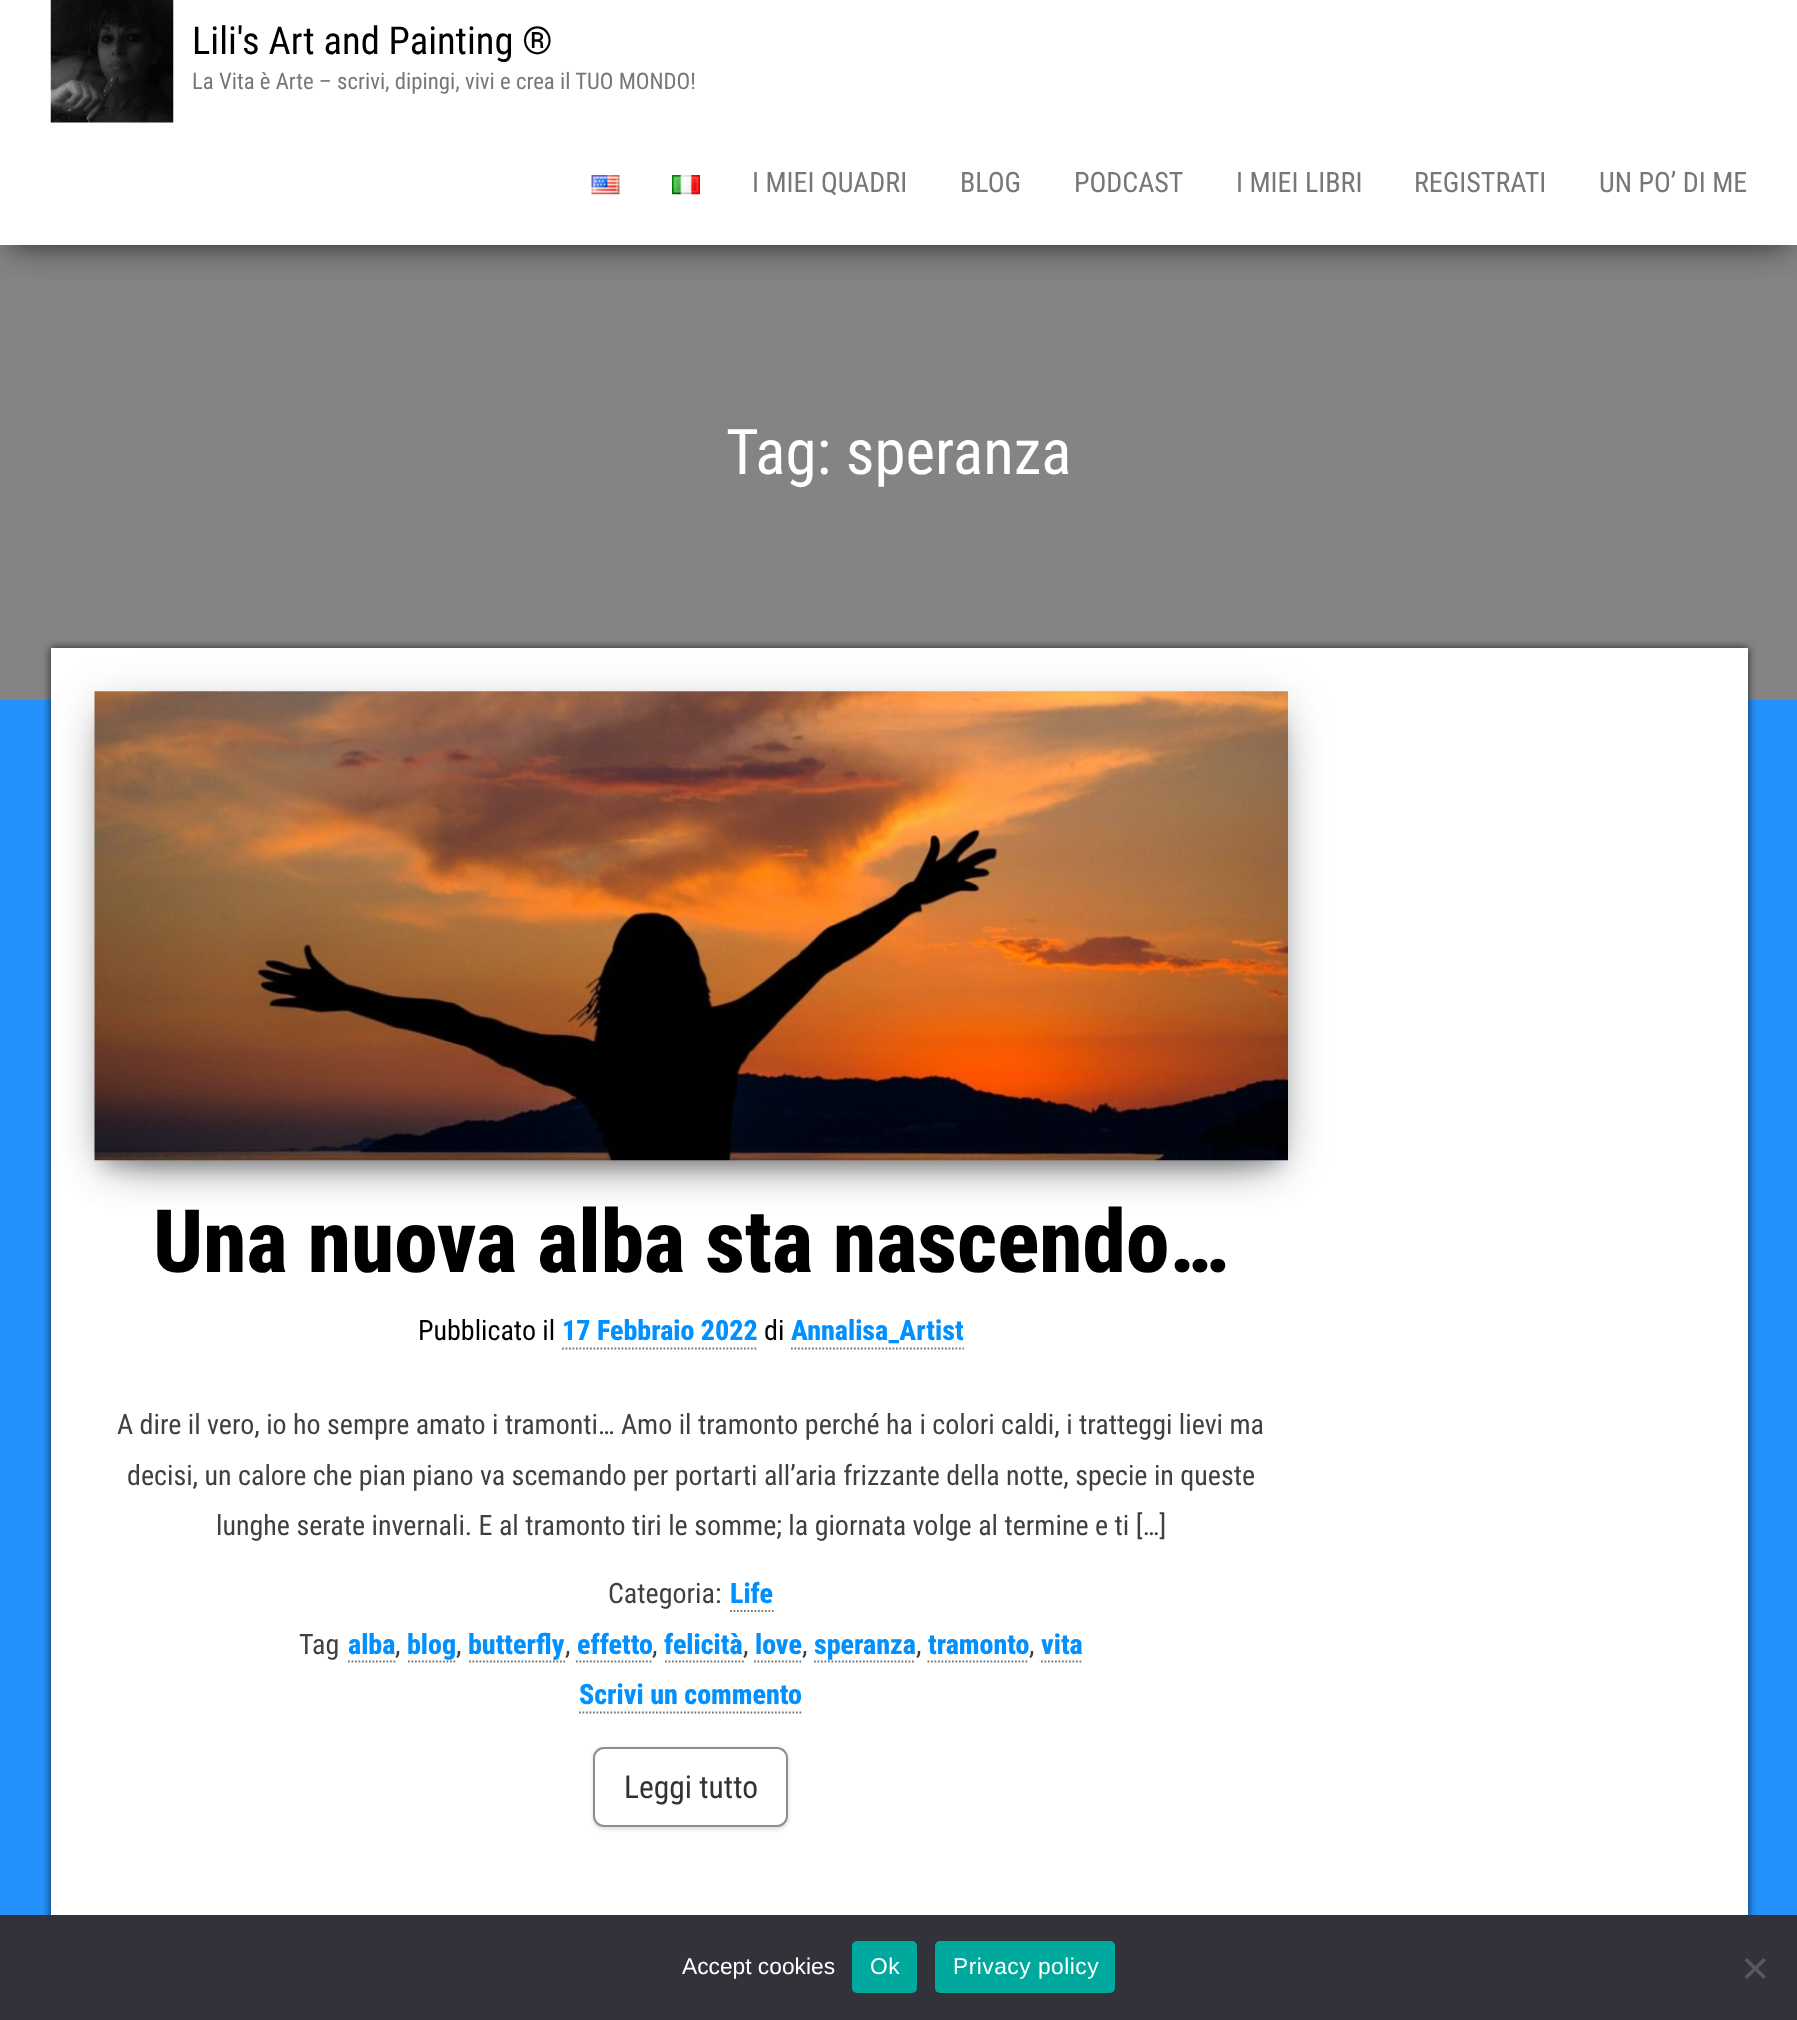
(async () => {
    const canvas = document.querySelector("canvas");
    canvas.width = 1797;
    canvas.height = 2020;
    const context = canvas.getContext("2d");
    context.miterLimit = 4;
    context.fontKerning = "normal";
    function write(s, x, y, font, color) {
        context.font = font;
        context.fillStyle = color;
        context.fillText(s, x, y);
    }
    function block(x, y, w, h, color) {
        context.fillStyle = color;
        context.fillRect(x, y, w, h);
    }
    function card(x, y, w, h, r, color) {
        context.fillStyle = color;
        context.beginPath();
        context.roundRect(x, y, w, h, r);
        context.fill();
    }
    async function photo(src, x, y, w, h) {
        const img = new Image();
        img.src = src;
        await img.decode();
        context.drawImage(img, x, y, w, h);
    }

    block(0, 0, 1797, 2020, "rgb(37, 145, 252)");
    block(0, 245, 1797, 455, "rgb(132, 132, 132)");
    context.fillStyle = "rgba(0, 0, 0, 0.2)";
    context.filter = "blur(9px)";
    context.beginPath();
    context.rect(9, 23, 1780, 227);
    context.fill();
    context.filter = "none";
    context.fillStyle = "rgba(0, 0, 0, 0.12)";
    context.filter = "blur(17.5px)";
    context.beginPath();
    context.rect(0, 5, 1797, 245);
    context.fill();
    context.filter = "none";
    context.fillStyle = "rgba(0, 0, 0, 0.42)";
    context.filter = "blur(17.5px)";
    context.beginPath();
    context.rect(21, 39, 1755, 203);
    context.fill();
    context.filter = "none";
    block(0, 0, 1797, 245, "rgb(255, 255, 255)");
    await photo("media/1.png", 50, 0, 124, 123);
    write("Lili's Art and Painting ®", 192, 54, "38.5px Roboto Condensed", "rgb(0, 0, 0)");
    write("La Vita è Arte – scrivi, dipingi, vivi e crea il TUO MONDO!", 192, 89, "22.75px Roboto Condensed", "rgb(119, 119, 119)");
    await photo("media/2.png", 591, 175, 29, 20);
    await photo("media/3.png", 672, 175, 28, 20);
    write("I MIEI QUADRI", 752, 192, "28px Roboto Condensed", "rgb(119, 119, 119)");
    write("BLOG", 960, 192, "28px Roboto Condensed", "rgb(119, 119, 119)");
    write("PODCAST", 1074, 192, "28px Roboto Condensed", "rgb(119, 119, 119)");
    write("I MIEI LIBRI", 1236, 192, "28px Roboto Condensed", "rgb(119, 119, 119)");
    write("REGISTRATI", 1414, 192, "28px Roboto Condensed", "rgb(119, 119, 119)");
    write("UN PO’ DI ME", 1599, 192, "28px Roboto Condensed", "rgb(119, 119, 119)");
    write("Tag: speranza", 726, 474, "63px Roboto Condensed", "rgb(255, 255, 255)");
    context.fillStyle = "rgba(0, 0, 0, 0.75)";
    context.filter = "blur(4.5px)";
    context.beginPath();
    context.rect(51, 648, 1697, 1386);
    context.fill();
    context.filter = "none";
    block(51, 648, 1697, 1267, "rgb(255, 255, 255)");
    context.fillStyle = "rgba(0, 0, 0, 0.12)";
    context.filter = "blur(22px)";
    context.beginPath();
    context.rect(95, 698, 1193, 469);
    context.fill();
    context.filter = "none";
    context.fillStyle = "rgba(0, 0, 0, 0.56)";
    context.filter = "blur(24.5px)";
    context.beginPath();
    context.rect(116, 730, 1151, 427);
    context.fill();
    context.filter = "none";
    context.fillStyle = "rgba(0, 0, 0, 0.2)";
    context.filter = "blur(9px)";
    context.beginPath();
    context.rect(103, 714, 1176, 452);
    context.fill();
    context.filter = "none";
    await photo("media/4.png", 94, 691, 1194, 470);
    write("Una nuova alba sta nascendo…", 153, 1272, "800 87.5px Roboto Condensed", "rgb(0, 0, 0)");
    write("Pubblicato il", 418, 1340, "28px Roboto Condensed", "rgb(0, 0, 0)");
    write("17 Febbraio 2022", 562, 1340, "800 28px Roboto Condensed", "rgb(0, 144, 255)");
    context.beginPath();
    context.moveTo(562, 1348.5);
    context.lineTo(758, 1348.5);
    context.strokeStyle = "rgb(119, 119, 119)";
    context.lineWidth = 1.8;
    context.setLineDash([1.75, 1.75]);
    context.stroke();
    write("di", 764, 1340, "28px Roboto Condensed", "rgb(0, 0, 0)");
    write("Annalisa_Artist", 791, 1340, "800 28px Roboto Condensed", "rgb(0, 144, 255)");
    context.beginPath();
    context.moveTo(791, 1348.5);
    context.lineTo(964, 1348.5);
    context.stroke();
    write("A dire il vero, io ho sempre amato i tramonti… Amo il tramonto perché ha i colori caldi, i tratteggi lievi ma", 117, 1434, "28px Roboto Condensed", "rgb(64, 64, 64)");
    write("decisi, un calore che pian piano va scemando per portarti all’aria frizzante della notte, specie in queste", 127, 1485, "28px Roboto Condensed", "rgb(64, 64, 64)");
    write("lunghe serate invernali. E al tramonto tiri le somme; la giornata volge al termine e ti […]", 216, 1535, "28px Roboto Condensed", "rgb(64, 64, 64)");
    write("Categoria:", 608, 1603, "28px Roboto Condensed", "rgb(64, 64, 64)");
    write("Life", 730, 1603, "800 28px Roboto Condensed", "rgb(0, 144, 255)");
    context.beginPath();
    context.moveTo(730, 1611);
    context.lineTo(773.5, 1611);
    context.stroke();
    write("Tag", 299, 1654, "28px Roboto Condensed", "rgb(64, 64, 64)");
    write("alba", 348, 1654, "800 28px Roboto Condensed", "rgb(0, 144, 255)");
    context.beginPath();
    context.moveTo(348, 1661.5);
    context.lineTo(395.5, 1661.5);
    context.stroke();
    write(",", 395, 1654, "28px Roboto Condensed", "rgb(64, 64, 64)");
    write("blog", 407, 1654, "800 28px Roboto Condensed", "rgb(0, 144, 255)");
    context.beginPath();
    context.moveTo(408, 1661.5);
    context.lineTo(457, 1661.5);
    context.stroke();
    write(",", 456, 1654, "28px Roboto Condensed", "rgb(64, 64, 64)");
    write("butterfly", 468, 1654, "800 28px Roboto Condensed", "rgb(0, 144, 255)");
    context.beginPath();
    context.moveTo(469, 1661.5);
    context.lineTo(565, 1661.5);
    context.stroke();
    write(",", 565, 1654, "28px Roboto Condensed", "rgb(64, 64, 64)");
    write("effetto", 577, 1654, "800 28px Roboto Condensed", "rgb(0, 144, 255)");
    context.beginPath();
    context.moveTo(576, 1661.5);
    context.lineTo(653, 1661.5);
    context.stroke();
    write(",", 652, 1654, "28px Roboto Condensed", "rgb(64, 64, 64)");
    write("felicità", 664, 1654, "800 28px Roboto Condensed", "rgb(0, 144, 255)");
    context.beginPath();
    context.moveTo(665, 1661.5);
    context.lineTo(744, 1661.5);
    context.stroke();
    write(",", 743, 1654, "28px Roboto Condensed", "rgb(64, 64, 64)");
    write("love", 755, 1654, "800 28px Roboto Condensed", "rgb(0, 144, 255)");
    context.beginPath();
    context.moveTo(754, 1661.5);
    context.lineTo(801.5, 1661.5);
    context.stroke();
    write(",", 802, 1654, "28px Roboto Condensed", "rgb(64, 64, 64)");
    write("speranza", 814, 1654, "800 28px Roboto Condensed", "rgb(0, 144, 255)");
    context.beginPath();
    context.moveTo(814, 1661.5);
    context.lineTo(915, 1661.5);
    context.stroke();
    write(",", 916, 1654, "28px Roboto Condensed", "rgb(64, 64, 64)");
    write("tramonto", 928, 1654, "800 28px Roboto Condensed", "rgb(0, 144, 255)");
    context.beginPath();
    context.moveTo(927.5, 1661.5);
    context.lineTo(1029, 1661.5);
    context.stroke();
    write(",", 1029, 1654, "28px Roboto Condensed", "rgb(64, 64, 64)");
    write("vita", 1041, 1654, "800 28px Roboto Condensed", "rgb(0, 144, 255)");
    context.beginPath();
    context.moveTo(1041, 1661.5);
    context.lineTo(1083, 1661.5);
    context.stroke();
    write("Scrivi un commento", 579, 1704, "800 28px Roboto Condensed", "rgb(0, 144, 255)");
    context.beginPath();
    context.moveTo(579, 1712.5);
    context.lineTo(801.5, 1712.5);
    context.stroke();
    context.fillStyle = "rgba(0, 0, 0, 0.15)";
    context.filter = "blur(2px)";
    context.beginPath();
    context.roundRect(593, 1748, 195, 81, 11);
    context.fill();
    context.filter = "none";
    context.fillStyle = "rgb(255, 255, 255)";
    context.beginPath();
    context.roundRect(594, 1748, 193, 78, 10);
    context.fill();
    context.strokeStyle = "rgb(142, 142, 142)";
    context.lineWidth = 2;
    context.setLineDash([]);
    context.stroke();
    write("Leggi tutto", 624, 1798, "31.5px Roboto Condensed", "rgb(51, 51, 51)");
    block(0, 1915, 1797, 105, "rgb(50, 50, 58)");
    write("Accept cookies", 682, 1974, "22.75px Liberation Sans", "rgb(255, 255, 255)");
    card(852, 1941, 65, 52, 5, "rgb(0, 169, 157)");
    context.letterSpacing = "0.5px";
    write("Ok", 870, 1974, "22.75px Liberation Sans", "rgb(255, 255, 255)");
    card(935, 1941, 180, 52, 5, "rgb(0, 169, 157)");
    write("Privacy policy", 953, 1974, "22.75px Liberation Sans", "rgb(255, 255, 255)");
    context.fillStyle = "rgb(89, 89, 93)";
    context.beginPath();
    context.moveTo(1763.5, 1958);
    context.lineTo(1766, 1960.5);
    context.lineTo(1747, 1979);
    context.lineTo(1744.5, 1976.5);
    context.closePath();
    context.fill();
    context.beginPath();
    context.moveTo(1744.5, 1960.5);
    context.lineTo(1747, 1958);
    context.lineTo(1766, 1976.5);
    context.lineTo(1763.5, 1979);
    context.closePath();
    context.fill();
})();
